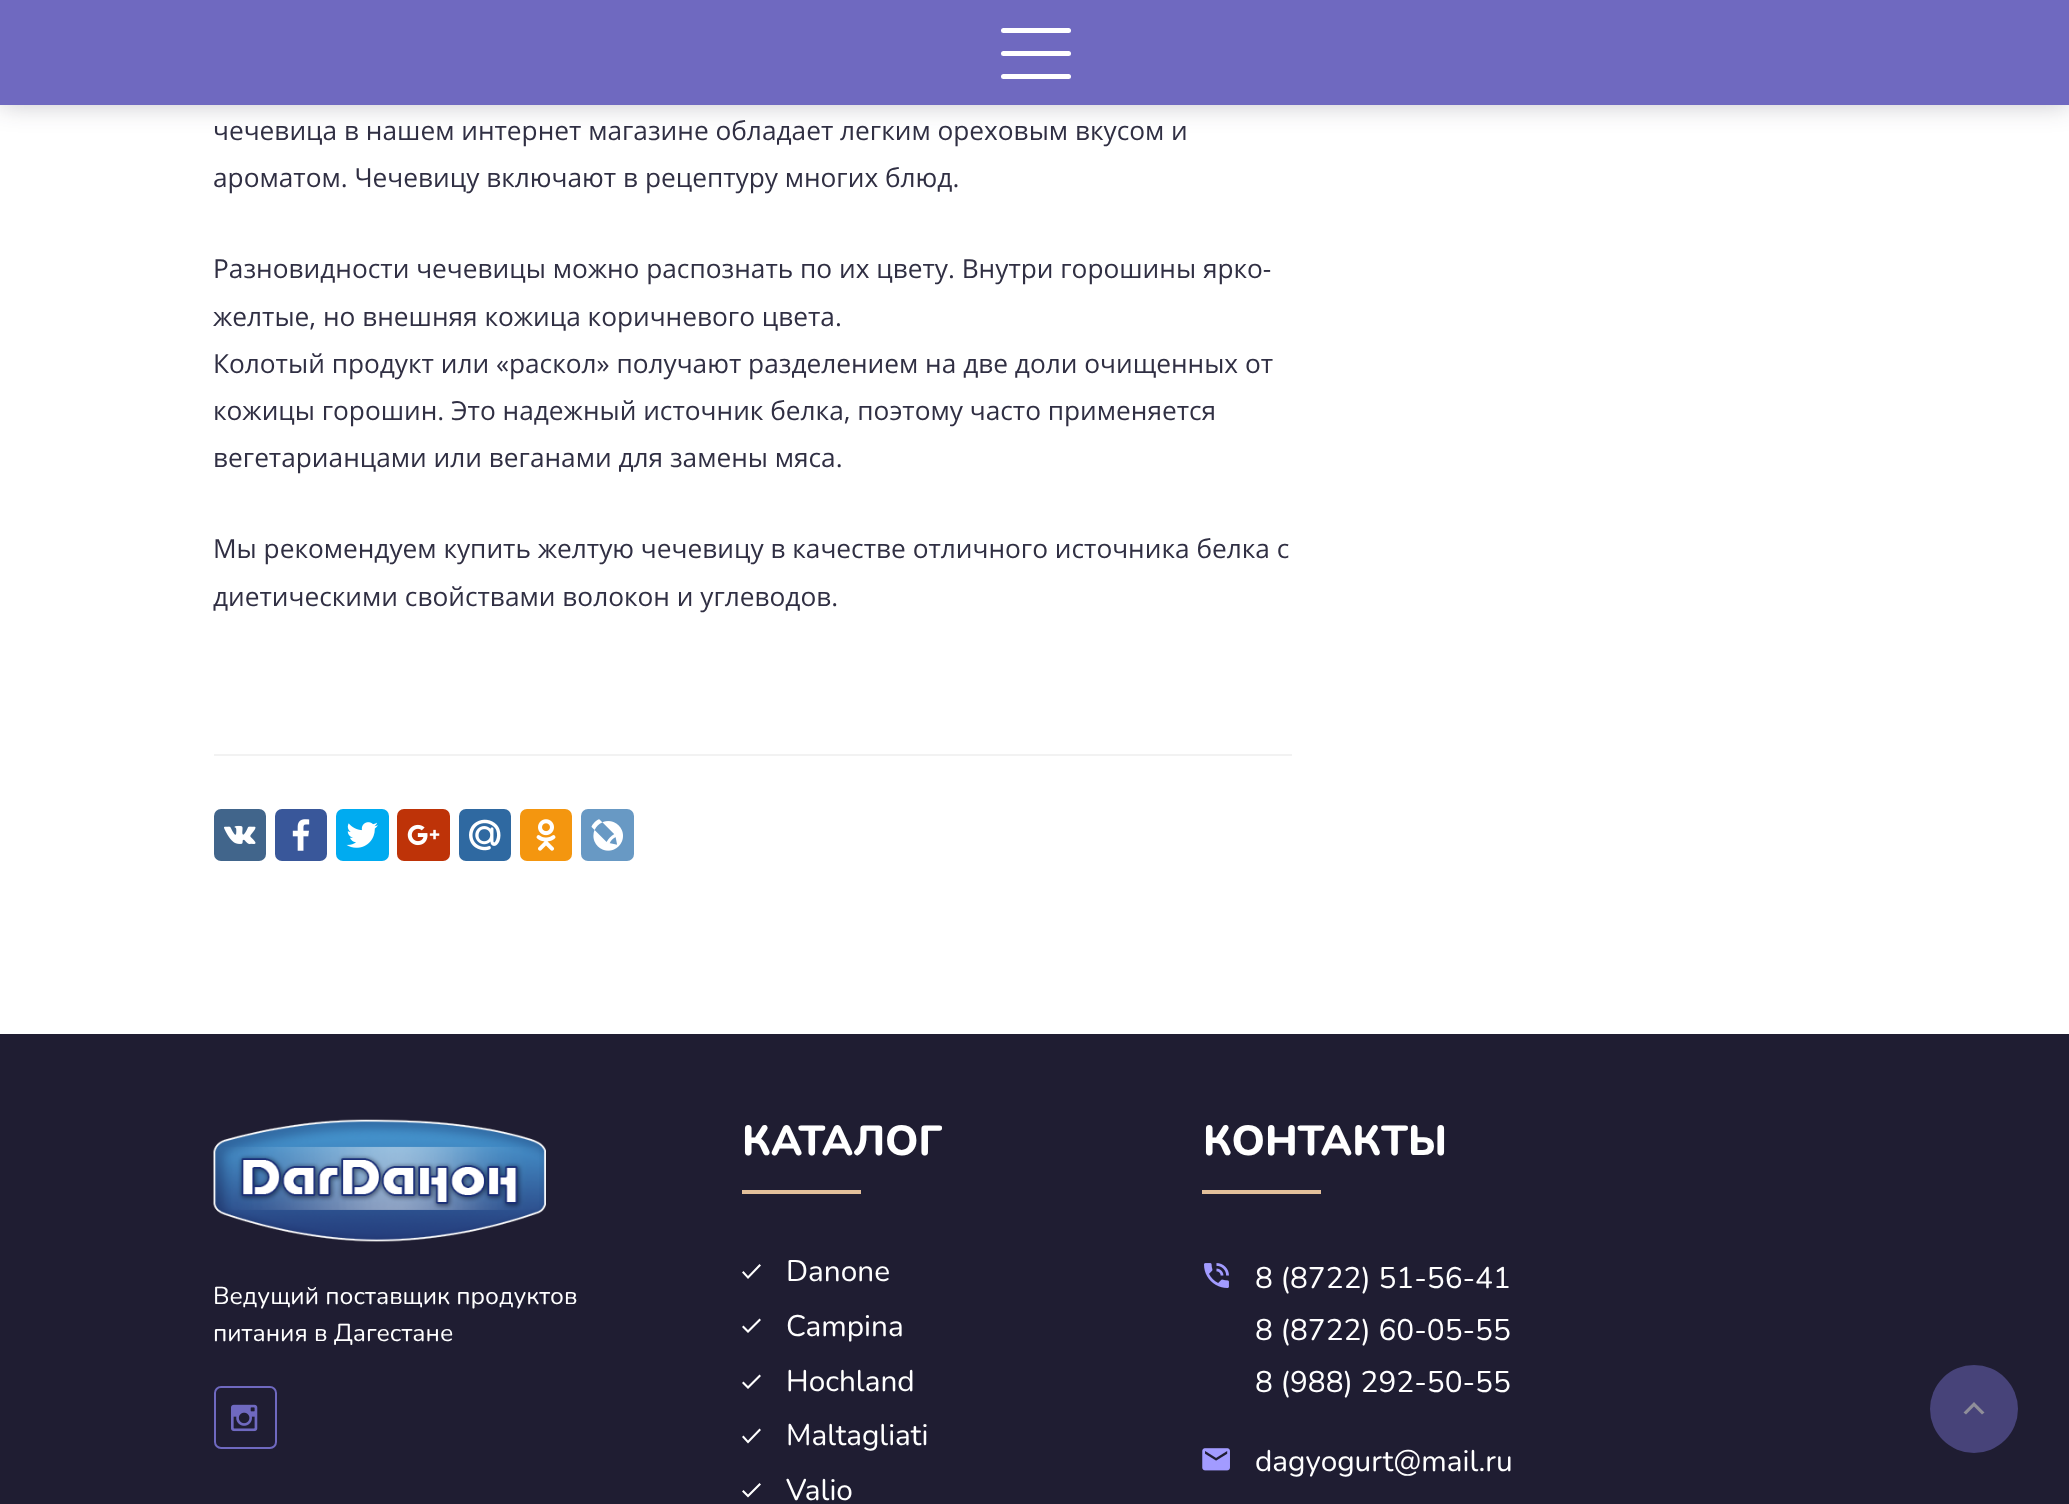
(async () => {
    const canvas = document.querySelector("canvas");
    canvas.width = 2069;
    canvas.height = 1504;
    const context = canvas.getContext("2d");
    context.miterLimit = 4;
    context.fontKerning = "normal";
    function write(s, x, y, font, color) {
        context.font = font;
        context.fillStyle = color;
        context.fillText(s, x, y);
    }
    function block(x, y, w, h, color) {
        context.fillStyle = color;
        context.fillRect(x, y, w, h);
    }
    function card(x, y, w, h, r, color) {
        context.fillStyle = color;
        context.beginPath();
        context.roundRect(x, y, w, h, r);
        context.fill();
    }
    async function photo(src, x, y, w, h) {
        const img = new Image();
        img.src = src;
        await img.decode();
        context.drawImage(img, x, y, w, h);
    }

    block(0, 0, 2069, 1504, "rgb(255, 255, 255)");
    context.fillStyle = "rgba(31, 29, 50, 0.25)";
    context.filter = "blur(13px)";
    context.beginPath();
    context.rect(0, 0, 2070, 105);
    context.fill();
    context.filter = "none";
    block(0, 0, 2069, 105, "rgb(111, 105, 192)");
    card(1001, 28, 70, 5, 2.5, "rgb(255, 255, 255)");
    card(1001, 51, 70, 5, 2.5, "rgb(255, 255, 255)");
    card(1001, 74, 70, 5, 2.5, "rgb(255, 255, 255)");
    write("чечевица в нашем интернет магазине обладает легким ореховым вкусом и", 213, 140, "26.25px Open Sans", "rgb(48, 47, 67)");
    write("ароматом. Чечевицу включают в рецептуру многих блюд.", 213, 187, "26.25px Open Sans", "rgb(48, 47, 67)");
    write("Разновидности чечевицы можно распознать по их цвету. Внутри горошины ярко-", 213, 278, "26.25px Open Sans", "rgb(48, 47, 67)");
    write("желтые, но внешняя кожица коричневого цвета.", 213, 326, "26.25px Open Sans", "rgb(48, 47, 67)");
    write("Колотый продукт или «раскол» получают разделением на две доли очищенных от", 213, 373, "26.25px Open Sans", "rgb(48, 47, 67)");
    write("кожицы горошин. Это надежный источник белка, поэтому часто применяется", 213, 420, "26.25px Open Sans", "rgb(48, 47, 67)");
    write("вегетарианцами или веганами для замены мяса.", 213, 467, "26.25px Open Sans", "rgb(48, 47, 67)");
    write("Мы рекомендуем купить желтую чечевицу в качестве отличного источника белка с", 213, 558, "26.25px Open Sans", "rgb(48, 47, 67)");
    write("диетическими свойствами волокон и углеводов.", 213, 606, "26.25px Open Sans", "rgb(48, 47, 67)");
    block(214, 754, 1078, 2, "rgb(242, 242, 242)");
    card(214, 809, 52, 52, 7, "rgb(65, 101, 139)");
    await photo("media/1.png", 224, 825, 32, 20);
    card(275, 809, 52, 52, 7, "rgb(57, 87, 154)");
    await photo("media/2.png", 292, 819, 18, 32);
    card(336, 809, 53, 52, 7, "rgb(0, 171, 240)");
    await photo("media/3.png", 346, 822, 32, 26);
    card(397, 809, 53, 52, 7, "rgb(190, 51, 8)");
    await photo("media/4.png", 407, 824, 33, 22);
    card(459, 809, 52, 52, 7, "rgb(47, 105, 161)");
    await photo("media/5.png", 469, 819, 32, 32);
    card(520, 809, 52, 52, 7, "rgb(244, 150, 15)");
    await photo("media/6.png", 536, 819, 20, 32);
    card(581, 809, 53, 52, 7, "rgb(104, 153, 196)");
    await photo("media/7.png", 591, 819, 32, 32);
    block(0, 1034, 2069, 470, "rgb(31, 29, 50)");
    await photo("media/8.png", 213, 1119, 333, 123);
    write("Ведущий поставщик продуктов", 213, 1304, "24.5px Nunito", "rgb(255, 255, 255)");
    write("питания в Дагестане", 213, 1341, "24.5px Nunito", "rgb(255, 255, 255)");
    context.beginPath();
    context.roundRect(215, 1387, 61, 61, 6);
    context.strokeStyle = "rgb(111, 105, 192)";
    context.lineWidth = 2;
    context.stroke();
    await photo("media/9.png", 231, 1404, 27, 28);
    write("КАТАЛОГ", 742, 1155, "800 42px Nunito", "rgb(255, 255, 255)");
    block(742, 1190, 119, 4, "rgb(227, 192, 155)");
    context.fillStyle = "rgb(255, 255, 255)";
    context.beginPath();
    context.moveTo(748, 1276);
    context.lineTo(759.5, 1264);
    context.lineTo(761, 1265.5);
    context.lineTo(748, 1279);
    context.lineTo(742, 1272.5);
    context.lineTo(743.5, 1271);
    context.closePath();
    context.fill();
    write("Danone", 786, 1281, "29.75px Nunito", "rgb(255, 255, 255)");
    context.beginPath();
    context.moveTo(748, 1330);
    context.lineTo(759.5, 1318.5);
    context.lineTo(761, 1320);
    context.lineTo(748, 1333);
    context.lineTo(742, 1327);
    context.lineTo(743.5, 1325.5);
    context.closePath();
    context.fill();
    write("Campina", 786, 1336, "29.75px Nunito", "rgb(255, 255, 255)");
    context.beginPath();
    context.moveTo(748, 1386);
    context.lineTo(759.5, 1374.5);
    context.lineTo(761, 1376);
    context.lineTo(748, 1389);
    context.lineTo(742, 1383);
    context.lineTo(743.5, 1381.5);
    context.closePath();
    context.fill();
    write("Hochland", 786, 1391, "29.75px Nunito", "rgb(255, 255, 255)");
    context.beginPath();
    context.moveTo(748, 1440.5);
    context.lineTo(759.5, 1428.5);
    context.lineTo(761, 1430);
    context.lineTo(748, 1443.5);
    context.lineTo(742, 1437);
    context.lineTo(743.5, 1435.5);
    context.closePath();
    context.fill();
    write("Maltagliati", 786, 1445, "29.75px Nunito", "rgb(255, 255, 255)");
    context.beginPath();
    context.moveTo(748, 1494.5);
    context.lineTo(759.5, 1483);
    context.lineTo(761, 1484.5);
    context.lineTo(748, 1497.5);
    context.lineTo(742, 1491.5);
    context.lineTo(743.5, 1490);
    context.closePath();
    context.fill();
    write("Valio", 786, 1500, "29.75px Nunito", "rgb(255, 255, 255)");
    write("КОНТАКТЫ", 1203, 1155, "800 42px Nunito", "rgb(255, 255, 255)");
    block(1202, 1190, 119, 4, "rgb(227, 192, 155)");
    await photo("media/10.png", 1204, 1263, 25, 25);
    write("8 (8722) 51-56-41", 1255, 1288, "29.75px Nunito", "rgb(255, 255, 255)");
    write("8 (8722) 60-05-55", 1255, 1340, "29.75px Nunito", "rgb(255, 255, 255)");
    write("8 (988) 292-50-55", 1255, 1392, "29.75px Nunito", "rgb(255, 255, 255)");
    await photo("media/11.png", 1202, 1448, 28, 23);
    write("dagyogurt@mail.ru", 1255, 1471, "29.75px Nunito", "rgb(255, 255, 255)");
    context.fillStyle = "rgb(71, 67, 121)";
    context.beginPath();
    context.arc(1974, 1409, 44, 0, Math.PI * 2);
    context.fill();
    context.fillStyle = "rgb(143, 142, 153)";
    context.beginPath();
    context.moveTo(1974, 1402);
    context.lineTo(1984.5, 1412.5);
    context.lineTo(1982, 1414.5);
    context.lineTo(1974, 1406.5);
    context.lineTo(1966, 1414.5);
    context.lineTo(1963.5, 1412.5);
    context.closePath();
    context.fill();
})();
